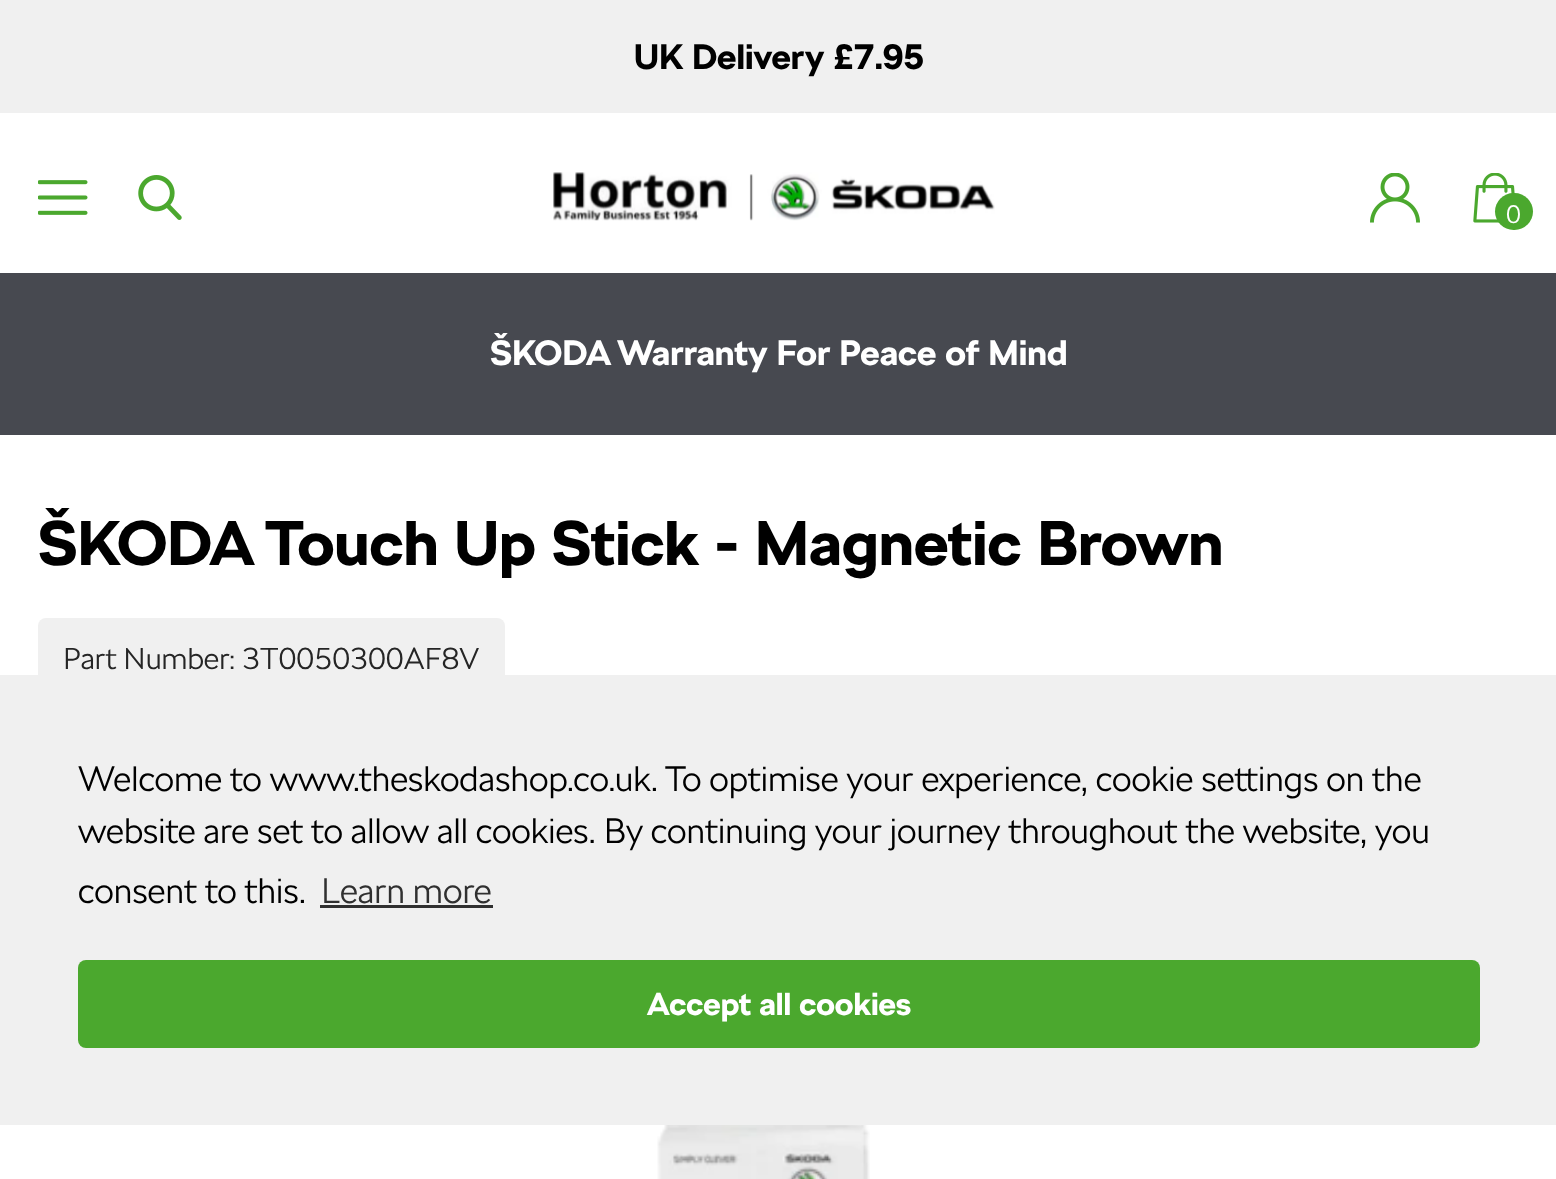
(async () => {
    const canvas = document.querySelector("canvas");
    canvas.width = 1556;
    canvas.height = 1179;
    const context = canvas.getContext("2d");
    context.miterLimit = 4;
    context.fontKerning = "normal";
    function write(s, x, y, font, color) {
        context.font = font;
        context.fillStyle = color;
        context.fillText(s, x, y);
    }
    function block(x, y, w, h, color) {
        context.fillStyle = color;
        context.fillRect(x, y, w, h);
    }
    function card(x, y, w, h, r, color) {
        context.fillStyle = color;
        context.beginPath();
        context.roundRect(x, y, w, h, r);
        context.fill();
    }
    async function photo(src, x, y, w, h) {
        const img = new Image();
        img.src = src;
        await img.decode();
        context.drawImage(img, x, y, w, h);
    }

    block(0, 0, 1556, 1179, "rgb(255, 255, 255)");
    block(0, 0, 1556, 113, "rgb(240, 240, 240)");
    write("UK Delivery £7.95", 634, 69, "bold 35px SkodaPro", "rgb(0, 0, 0)");
    await photo("media/1.png", 38, 180, 50, 35);
    await photo("media/2.png", 138, 175, 44, 45);
    await photo("media/3.png", 553, 172, 442, 49);
    await photo("media/4.png", 1370, 173, 50, 50);
    await photo("media/5.png", 1473, 173, 42, 50);
    card(1495, 193, 38, 37, 18.5, "rgb(75, 168, 46)");
    write("0", 1506, 223, "300 25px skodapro", "rgb(255, 255, 255)");
    block(0, 273, 1556, 162, "rgb(71, 73, 80)");
    write("ŠKODA Warranty For Peace of Mind", 490, 365, "bold 35px SkodaPro", "rgb(255, 255, 255)");
    write("ŠKODA Touch Up Stick - Magnetic Brown", 38, 565, "bold 62.5px SkodaPro", "rgb(0, 0, 0)");
    card(38, 618, 467, 85, 8, "rgb(240, 240, 240)");
    write("Part Number: 3T0050300AF8V", 63, 669, "300 30px skodapro", "rgb(37, 37, 37)");
    await photo("media/6.png", 657, 1125, 213, 54);
    block(0, 675, 1556, 450, "rgb(240, 240, 240)");
    write("Welcome to www.theskodashop.co.uk. To optimise your experience, cookie settings on the", 78, 791, "300 35px skodapro", "rgb(0, 0, 0)");
    write("website are set to allow all cookies. By continuing your journey throughout the website, you", 78, 843, "300 35px skodapro", "rgb(0, 0, 0)");
    write("consent to this.", 78, 903, "300 35px skodapro", "rgb(0, 0, 0)");
    write("Learn more", 321, 903, "300 35px skodapro", "rgb(48, 48, 48)");
    block(320, 905, 173, 3, "rgb(48, 48, 48)");
    card(78, 960, 1402, 88, 8, "rgb(75, 168, 46)");
    write("Accept all cookies", 647, 1015, "bold 31.5px SkodaPro", "rgb(255, 255, 255)");
})();
